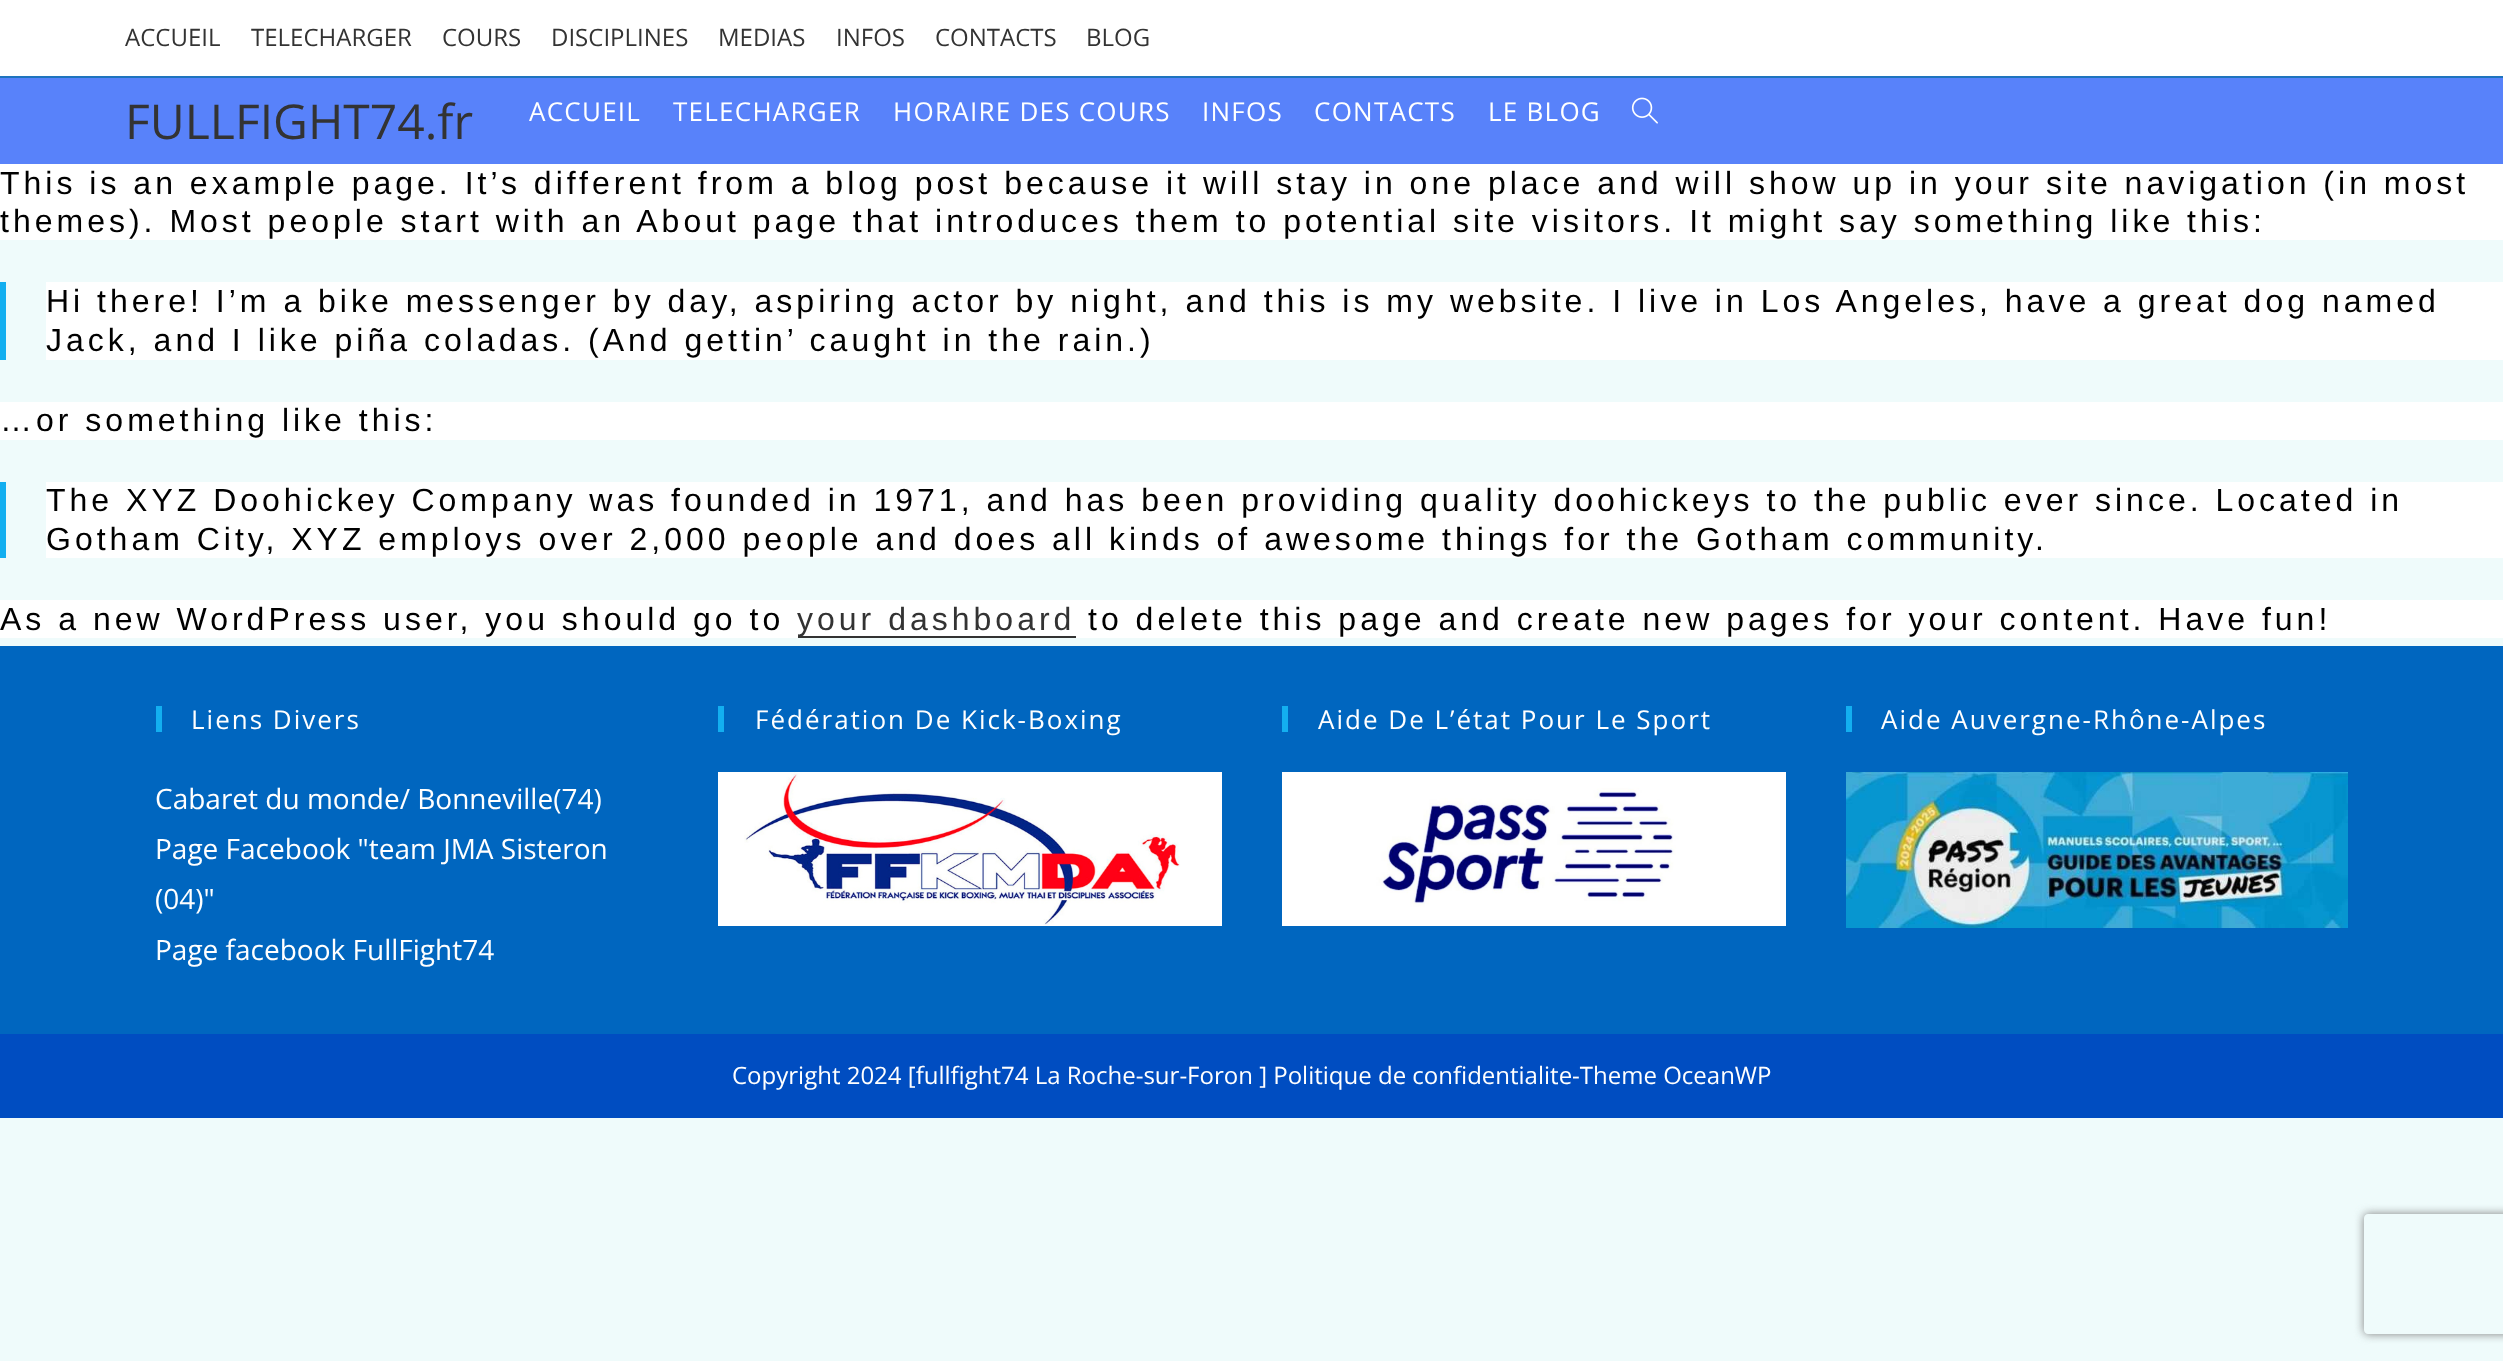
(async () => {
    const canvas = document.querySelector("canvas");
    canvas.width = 2503;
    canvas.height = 1361;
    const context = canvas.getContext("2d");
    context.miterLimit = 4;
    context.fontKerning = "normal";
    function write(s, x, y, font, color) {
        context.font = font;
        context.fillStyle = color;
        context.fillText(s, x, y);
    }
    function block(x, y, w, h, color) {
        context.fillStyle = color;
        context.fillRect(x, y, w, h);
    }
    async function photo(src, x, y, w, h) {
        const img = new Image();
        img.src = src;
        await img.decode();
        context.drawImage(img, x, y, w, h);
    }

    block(0, 0, 2503, 1361, "rgb(239, 251, 251)");
    block(0, 0, 2503, 76, "rgb(255, 255, 255)");
    block(0, 76, 2503, 2, "rgb(30, 115, 190)");
    write("ACCUEIL", 125, 46, "24px Open Sans", "rgb(51, 51, 51)");
    write("TELECHARGER", 251, 46, "24px Open Sans", "rgb(51, 51, 51)");
    write("COURS", 442, 46, "24px Open Sans", "rgb(51, 51, 51)");
    write("DISCIPLINES", 551, 46, "24px Open Sans", "rgb(51, 51, 51)");
    write("MEDIAS", 718, 46, "24px Open Sans", "rgb(51, 51, 51)");
    write("INFOS", 836, 46, "24px Open Sans", "rgb(51, 51, 51)");
    write("CONTACTS", 935, 46, "24px Open Sans", "rgb(51, 51, 51)");
    write("BLOG", 1086, 46, "24px Open Sans", "rgb(51, 51, 51)");
    block(0, 78, 2503, 86, "rgb(88, 130, 250)");
    write("FULLFIGHT74.fr", 125, 139, "48px Open Sans", "rgb(51, 51, 51)");
    context.letterSpacing = "1.25px";
    write("ACCUEIL", 529, 121, "26px Open Sans", "rgb(255, 255, 255)");
    write("TELECHARGER", 673, 121, "26px Open Sans", "rgb(255, 255, 255)");
    write("HORAIRE DES COURS", 893, 121, "26px Open Sans", "rgb(255, 255, 255)");
    write("INFOS", 1202, 121, "26px Open Sans", "rgb(255, 255, 255)");
    write("CONTACTS", 1314, 121, "26px Open Sans", "rgb(255, 255, 255)");
    write("LE BLOG", 1488, 121, "26px Open Sans", "rgb(255, 255, 255)");
    await photo("media/1.png", 1631, 97, 27, 27);
    block(0, 164, 2503, 76, "rgb(255, 255, 255)");
    context.letterSpacing = "4px";
    write("This is an example page. It’s different from a blog post because it will stay in one place and will show up in your site navigation (in most", 0, 194, "32px Liberation Sans", "rgb(0, 0, 0)");
    write("themes). Most people start with an About page that introduces them to potential site visitors. It might say something like this:", 0, 232, "32px Liberation Sans", "rgb(0, 0, 0)");
    block(0, 282, 6, 78, "rgb(19, 175, 240)");
    block(46, 282, 2457, 78, "rgb(255, 255, 255)");
    write("Hi there! I’m a bike messenger by day, aspiring actor by night, and this is my website. I live in Los Angeles, have a great dog named", 46, 312, "32px Liberation Sans", "rgb(0, 0, 0)");
    write("Jack, and I like piña coladas. (And gettin’ caught in the rain.)", 46, 351, "32px Liberation Sans", "rgb(0, 0, 0)");
    block(0, 402, 2503, 38, "rgb(255, 255, 255)");
    write("…or something like this:", 0, 431, "32px Liberation Sans", "rgb(0, 0, 0)");
    block(0, 482, 6, 76, "rgb(19, 175, 240)");
    block(46, 482, 2457, 76, "rgb(255, 255, 255)");
    write("The XYZ Doohickey Company was founded in 1971, and has been providing quality doohickeys to the public ever since. Located in", 46, 511, "32px Liberation Sans", "rgb(0, 0, 0)");
    write("Gotham City, XYZ employs over 2,000 people and does all kinds of awesome things for the Gotham community.", 46, 550, "32px Liberation Sans", "rgb(0, 0, 0)");
    block(0, 600, 2503, 38, "rgb(255, 255, 255)");
    write("As a new WordPress user, you should go to", 0, 630, "32px Liberation Sans", "rgb(0, 0, 0)");
    block(798, 636, 278, 2, "rgb(51, 51, 51)");
    write("your dashboard", 797, 630, "32px Liberation Sans", "rgb(51, 51, 51)");
    write("to delete this page and create new pages for your content. Have fun!", 1088, 630, "32px Liberation Sans", "rgb(0, 0, 0)");
    block(0, 646, 2503, 388, "rgb(0, 102, 191)");
    block(156, 706, 6, 26, "rgb(19, 175, 240)");
    context.letterSpacing = "2px";
    write("Liens Divers", 191, 729, "26px Open Sans", "rgb(255, 255, 255)");
    context.letterSpacing = "0px";
    write("Cabaret du monde/ Bonneville(74)", 155, 809, "28px Open Sans", "rgb(255, 255, 255)");
    write("Page Facebook \"team JMA Sisteron", 155, 859, "28px Open Sans", "rgb(255, 255, 255)");
    write("(04)\"", 155, 909, "28px Open Sans", "rgb(255, 255, 255)");
    write("Page facebook FullFight74", 155, 960, "28px Open Sans", "rgb(255, 255, 255)");
    block(718, 706, 6, 26, "rgb(19, 175, 240)");
    context.letterSpacing = "2px";
    write("Fédération De Kick-Boxing", 755, 729, "26px Open Sans", "rgb(255, 255, 255)");
    await photo("media/2.png", 718, 772, 504, 154);
    block(1282, 706, 6, 26, "rgb(19, 175, 240)");
    write("Aide De L’état Pour Le Sport", 1318, 729, "26px Open Sans", "rgb(255, 255, 255)");
    await photo("media/3.png", 1282, 772, 504, 154);
    block(1846, 706, 6, 26, "rgb(19, 175, 240)");
    write("Aide Auvergne-Rhône-Alpes", 1881, 729, "26px Open Sans", "rgb(255, 255, 255)");
    await photo("media/4.png", 1846, 772, 502, 156);
    block(0, 1034, 2503, 84, "rgb(0, 77, 193)");
    context.letterSpacing = "0px";
    write("Copyright 2024 [fullfight74 La Roche-sur-Foron ] Politique de confidentialite-Theme OceanWP", 732, 1084, "24px Open Sans", "rgb(255, 255, 255)");
    context.save();
    context.beginPath();
    context.moveTo(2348, 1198);
    context.lineTo(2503, 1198);
    context.lineTo(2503, 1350);
    context.lineTo(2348, 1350);
    context.closePath();
    context.moveTo(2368, 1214);
    context.lineTo(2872, 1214);
    context.bezierCurveTo(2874, 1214, 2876, 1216, 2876, 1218);
    context.lineTo(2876, 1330);
    context.bezierCurveTo(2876, 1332, 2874, 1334, 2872, 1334);
    context.lineTo(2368, 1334);
    context.bezierCurveTo(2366, 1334, 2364, 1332, 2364, 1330);
    context.lineTo(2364, 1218);
    context.bezierCurveTo(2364, 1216, 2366, 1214, 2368, 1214);
    context.closePath();
    context.clip("evenodd");
    context.fillStyle = "rgb(128, 128, 128)";
    context.filter = "blur(5px)";
    context.beginPath();
    context.roundRect(2364, 1214, 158, 120, 4);
    context.fill();
    context.filter = "none";
    context.restore();
})();
